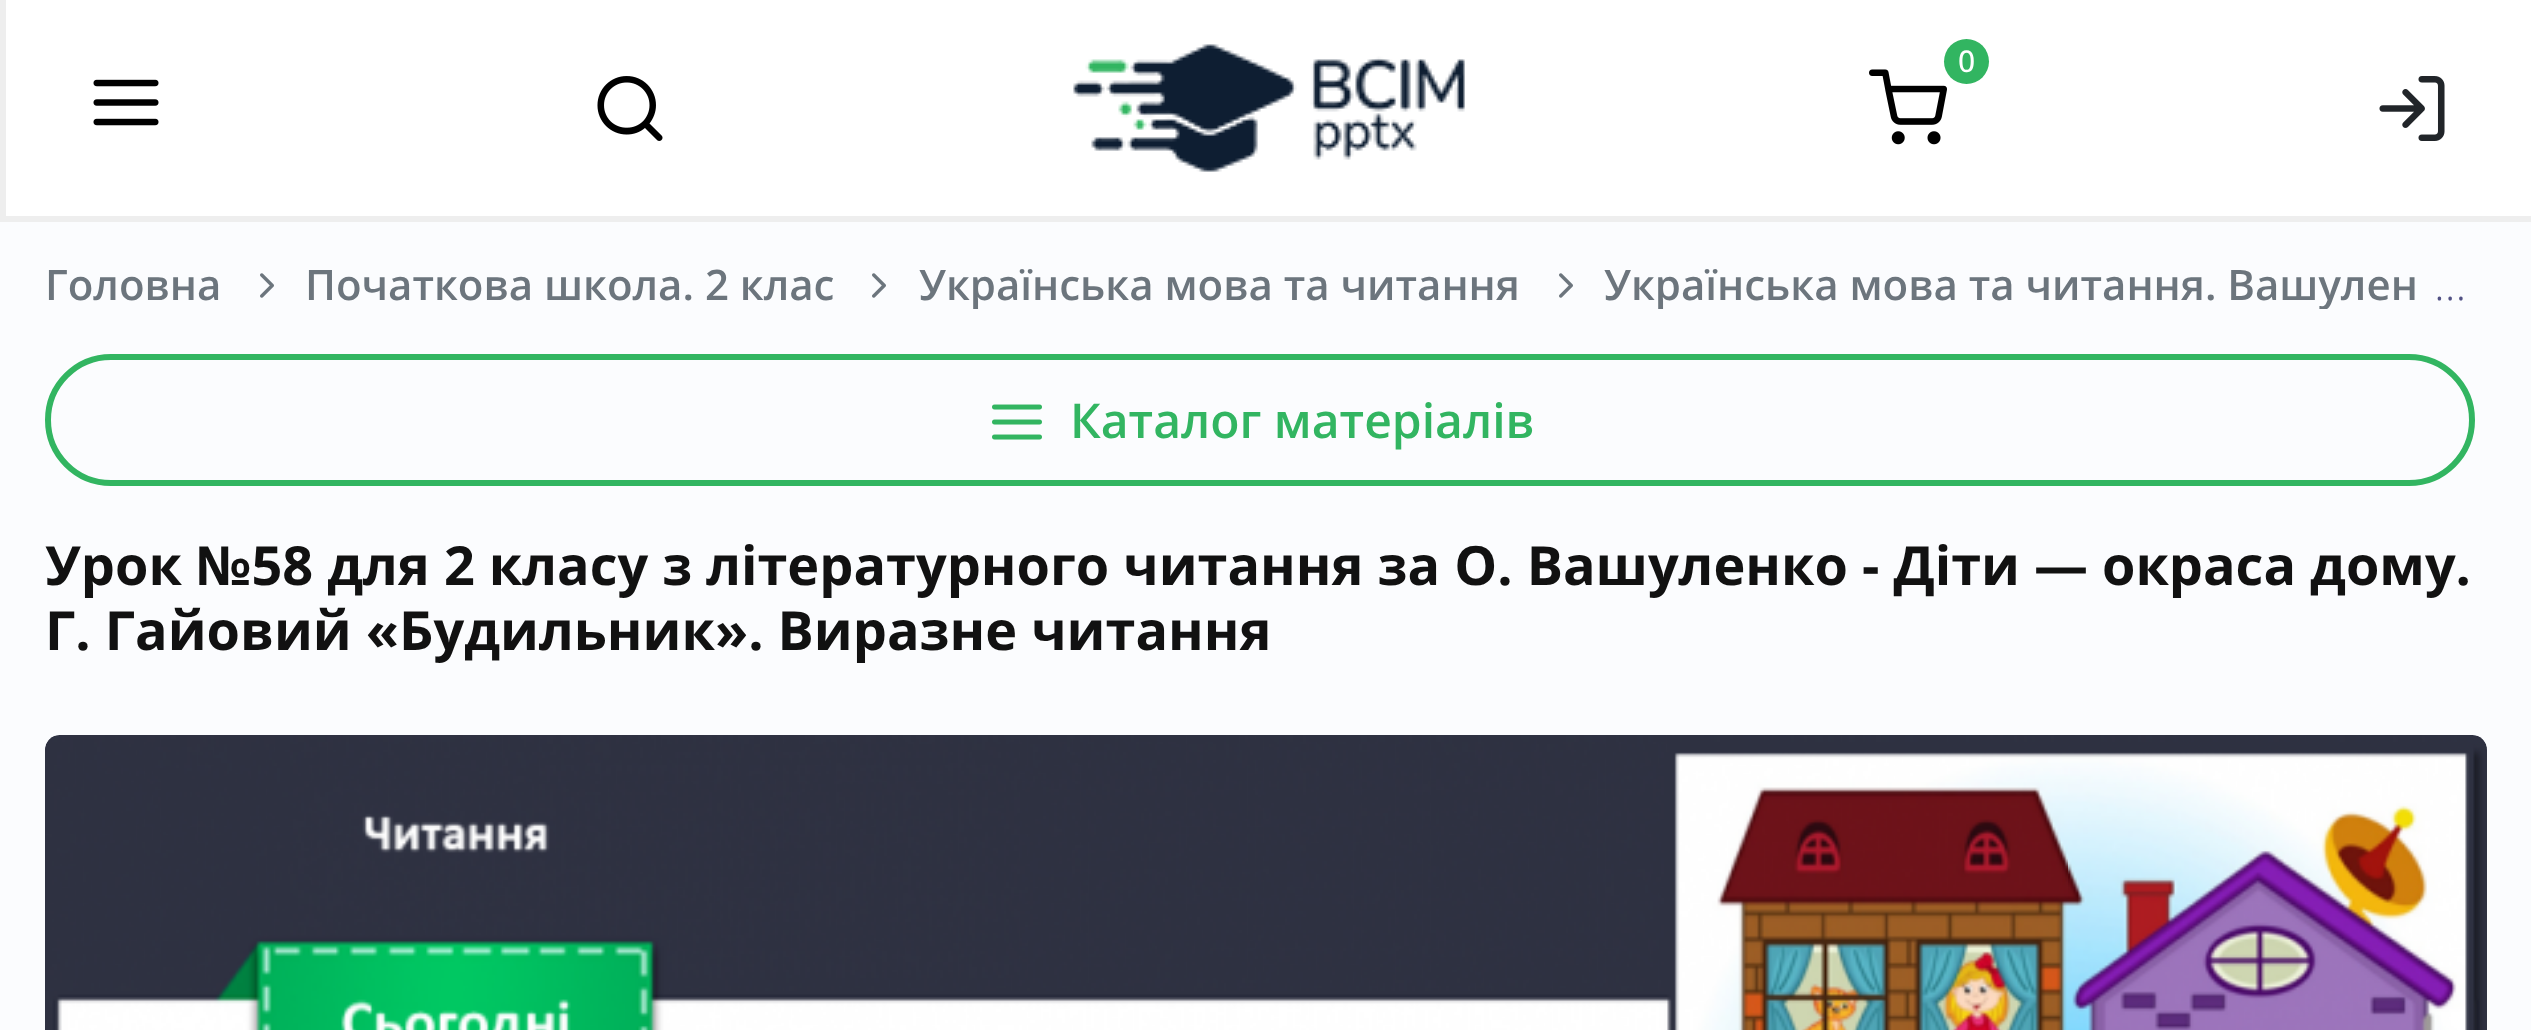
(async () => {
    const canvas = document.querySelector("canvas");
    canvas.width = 2531;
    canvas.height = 1030;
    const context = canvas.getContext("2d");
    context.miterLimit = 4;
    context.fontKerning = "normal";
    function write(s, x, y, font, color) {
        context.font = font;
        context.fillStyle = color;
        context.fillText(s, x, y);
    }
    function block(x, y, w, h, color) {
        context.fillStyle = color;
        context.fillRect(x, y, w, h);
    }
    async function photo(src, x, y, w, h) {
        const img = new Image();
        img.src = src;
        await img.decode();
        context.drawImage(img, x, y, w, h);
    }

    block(0, 0, 2531, 1030, "rgb(251, 252, 254)");
    block(6, 0, 2525, 216, "rgb(255, 255, 255)");
    block(0, 216, 2531, 6, "rgb(238, 238, 238)");
    block(0, 0, 6, 222, "rgb(238, 238, 238)");
    await photo("media/1.png", 1073, 44, 392, 128);
    await photo("media/2.png", 1869, 69, 78, 76);
    context.fillStyle = "rgb(50, 181, 97)";
    context.beginPath();
    context.arc(1966.5, 61.5, 22.5, 0, Math.PI * 2);
    context.fill();
    write("0", 1958, 72, "500 30px Open Sans", "rgb(255, 255, 255)");
    await photo("media/3.png", 93, 79, 66, 47);
    await photo("media/4.png", 597, 76, 66, 65);
    await photo("media/5.png", 2379, 76, 66, 65);
    write("Головна", 45, 300, "600 42px Open Sans", "rgb(108, 117, 125)");
    await photo("media/6.png", 260, 273, 14, 25);
    write("Початкова школа. 2 клас", 305, 300, "600 42px Open Sans", "rgb(108, 117, 125)");
    await photo("media/6.png", 872, 273, 14, 25);
    context.save();
    context.beginPath();
    context.rect(45, 258, 2382, 51);
    context.clip();
    write("Українська мова та читання", 919, 300, "600 42px Open Sans", "rgb(108, 117, 125)");
    context.restore();
    await photo("media/6.png", 1559, 273, 14, 25);
    context.save();
    context.beginPath();
    context.rect(45, 258, 2382, 51);
    context.clip();
    write("Українська мова та читання. Вашулен", 1604, 300, "600 42px Open Sans", "rgb(108, 117, 125)");
    context.restore();
    write("...", 2434, 300, "300 45px Open Sans", "rgb(81, 81, 132)");
    context.beginPath();
    context.roundRect(48, 357, 2424, 126, 63);
    context.strokeStyle = "rgb(50, 181, 97)";
    context.lineWidth = 6;
    context.stroke();
    await photo("media/7.png", 992, 404, 50, 36);
    write("Каталог матеріалів", 1070, 438, "600 48px Open Sans", "rgb(50, 181, 97)");
    write("Урок №58 для 2 класу з літературного читання за О. Вашуленко - Діти — окраса дому.", 45, 585, "bold 54px Open Sans", "rgb(17, 17, 17)");
    write("Г. Гайовий «Будильник». Виразне читання", 45, 650, "bold 54px Open Sans", "rgb(17, 17, 17)");
    await photo("media/8.png", 45, 735, 2442, 295);
})();
